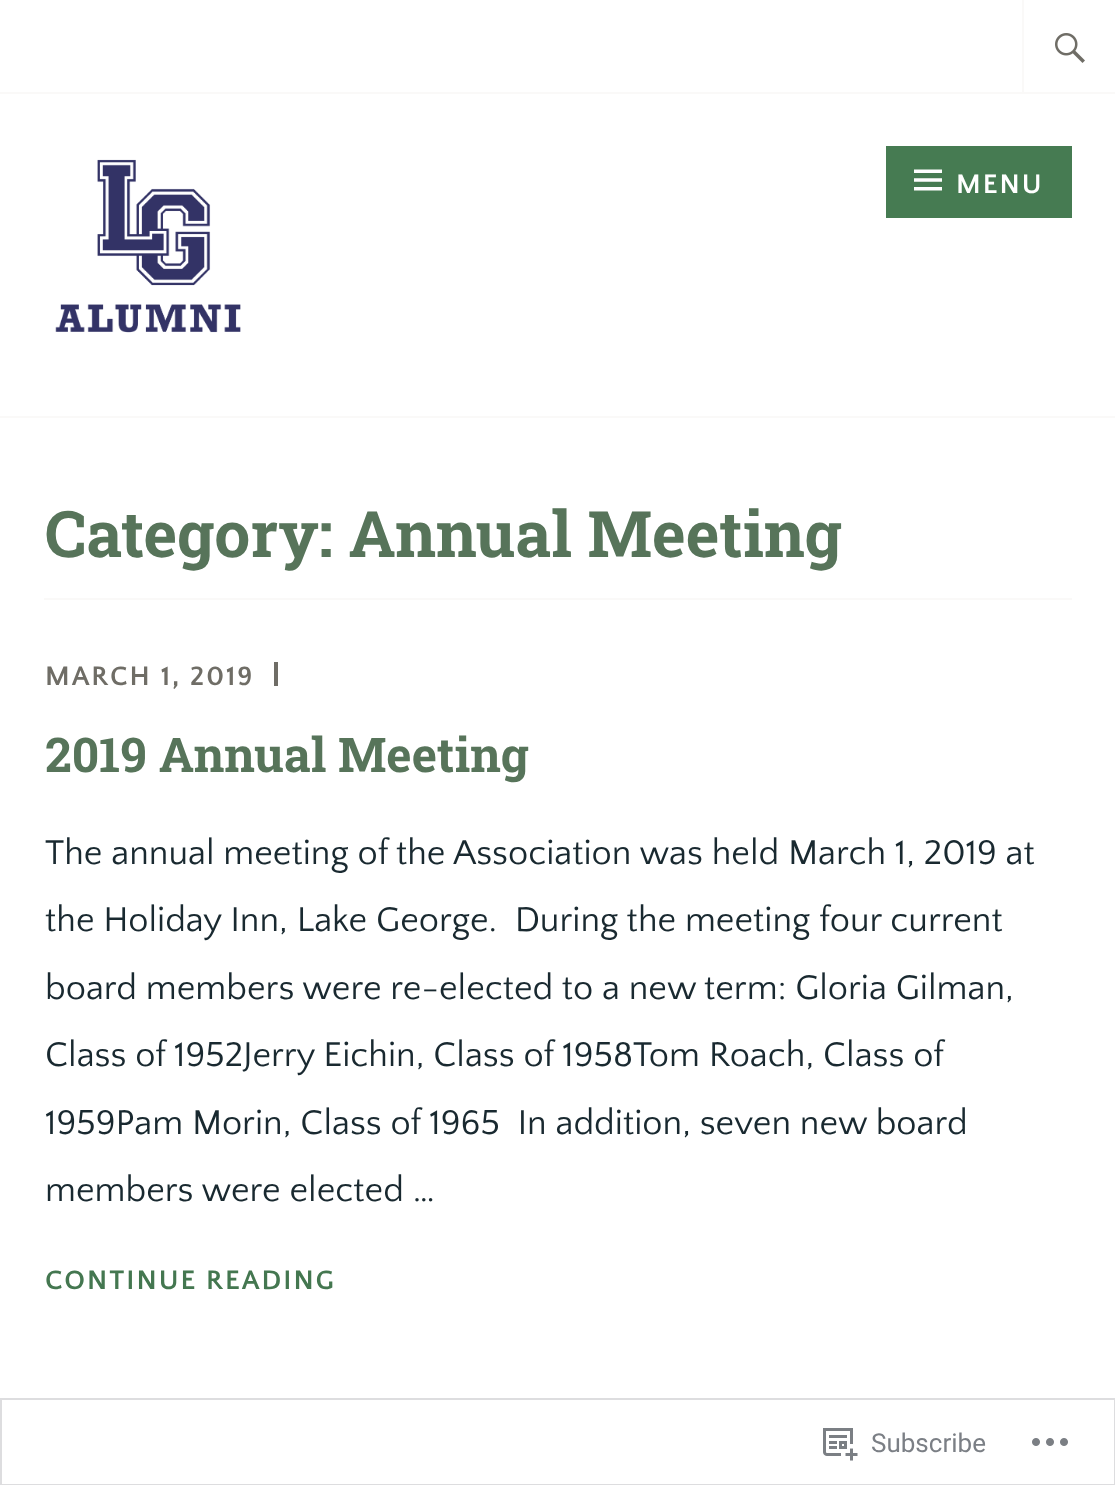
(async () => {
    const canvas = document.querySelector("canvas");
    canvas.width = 1115;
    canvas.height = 1485;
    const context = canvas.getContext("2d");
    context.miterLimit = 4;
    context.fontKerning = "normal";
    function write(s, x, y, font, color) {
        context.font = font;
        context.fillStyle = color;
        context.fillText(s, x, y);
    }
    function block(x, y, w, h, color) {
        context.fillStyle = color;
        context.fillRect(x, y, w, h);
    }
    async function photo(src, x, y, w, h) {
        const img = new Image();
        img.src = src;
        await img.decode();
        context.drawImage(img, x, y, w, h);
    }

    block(0, 0, 1115, 1485, "rgb(255, 255, 255)");
    block(0, 416, 1115, 2, "rgb(250, 249, 248)");
    block(0, 92, 1115, 2, "rgb(250, 249, 248)");
    block(1022, 0, 2, 92, "rgb(250, 249, 248)");
    await photo("media/1.png", 1055, 33, 30, 30);
    await photo("media/2.png", 55, 159, 186, 174);
    block(886, 146, 186, 72, "rgb(70, 123, 82)");
    await photo("media/3.png", 914, 169, 28, 22);
    context.letterSpacing = "2px";
    write("MENU", 956, 193, "bold 28px Quattrocento Sans", "rgb(255, 255, 255)");
    block(44, 598, 1028, 2, "rgb(250, 249, 248)");
    context.letterSpacing = "0px";
    write("Category: Annual Meeting", 45, 557, "bold 64px Roboto Slab", "rgb(87, 116, 90)");
    context.letterSpacing = "2px";
    write("MARCH 1, 2019", 45, 685, "bold 28px Quattrocento Sans", "rgb(111, 109, 102)");
    block(274, 662, 4, 24, "rgb(111, 109, 102)");
    context.letterSpacing = "0px";
    write("2019 Annual Meeting", 45, 772, "bold 48px Roboto Slab", "rgb(87, 116, 90)");
    write("The annual meeting of the Association was held March 1, 2019 at", 45, 864, "36px Quattrocento Sans", "rgb(25, 41, 48)");
    write("the Holiday Inn, Lake George.  During the meeting four current", 45, 931, "36px Quattrocento Sans", "rgb(25, 41, 48)");
    write("board members were re-elected to a new term: Gloria Gilman,", 45, 999, "36px Quattrocento Sans", "rgb(25, 41, 48)");
    write("Class of 1952Jerry Eichin, Class of 1958Tom Roach, Class of", 45, 1066, "36px Quattrocento Sans", "rgb(25, 41, 48)");
    write("1959Pam Morin, Class of 1965  In addition, seven new board", 45, 1134, "36px Quattrocento Sans", "rgb(25, 41, 48)");
    write("members were elected …", 45, 1201, "36px Quattrocento Sans", "rgb(25, 41, 48)");
    context.letterSpacing = "2px";
    write("CONTINUE READING", 45, 1289, "bold 28px Quattrocento Sans", "rgb(68, 119, 80)");
    context.strokeStyle = "rgb(221, 221, 223)";
    context.lineWidth = 2;
    context.strokeRect(1, 1399, 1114, 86);
    await photo("media/4.png", 823, 1428, 35, 33);
    context.letterSpacing = "0px";
    write("Subscribe", 871, 1452, "26px Roboto", "rgb(123, 127, 133)");
    await photo("media/5.png", 1032, 1438, 36, 8);
})();
